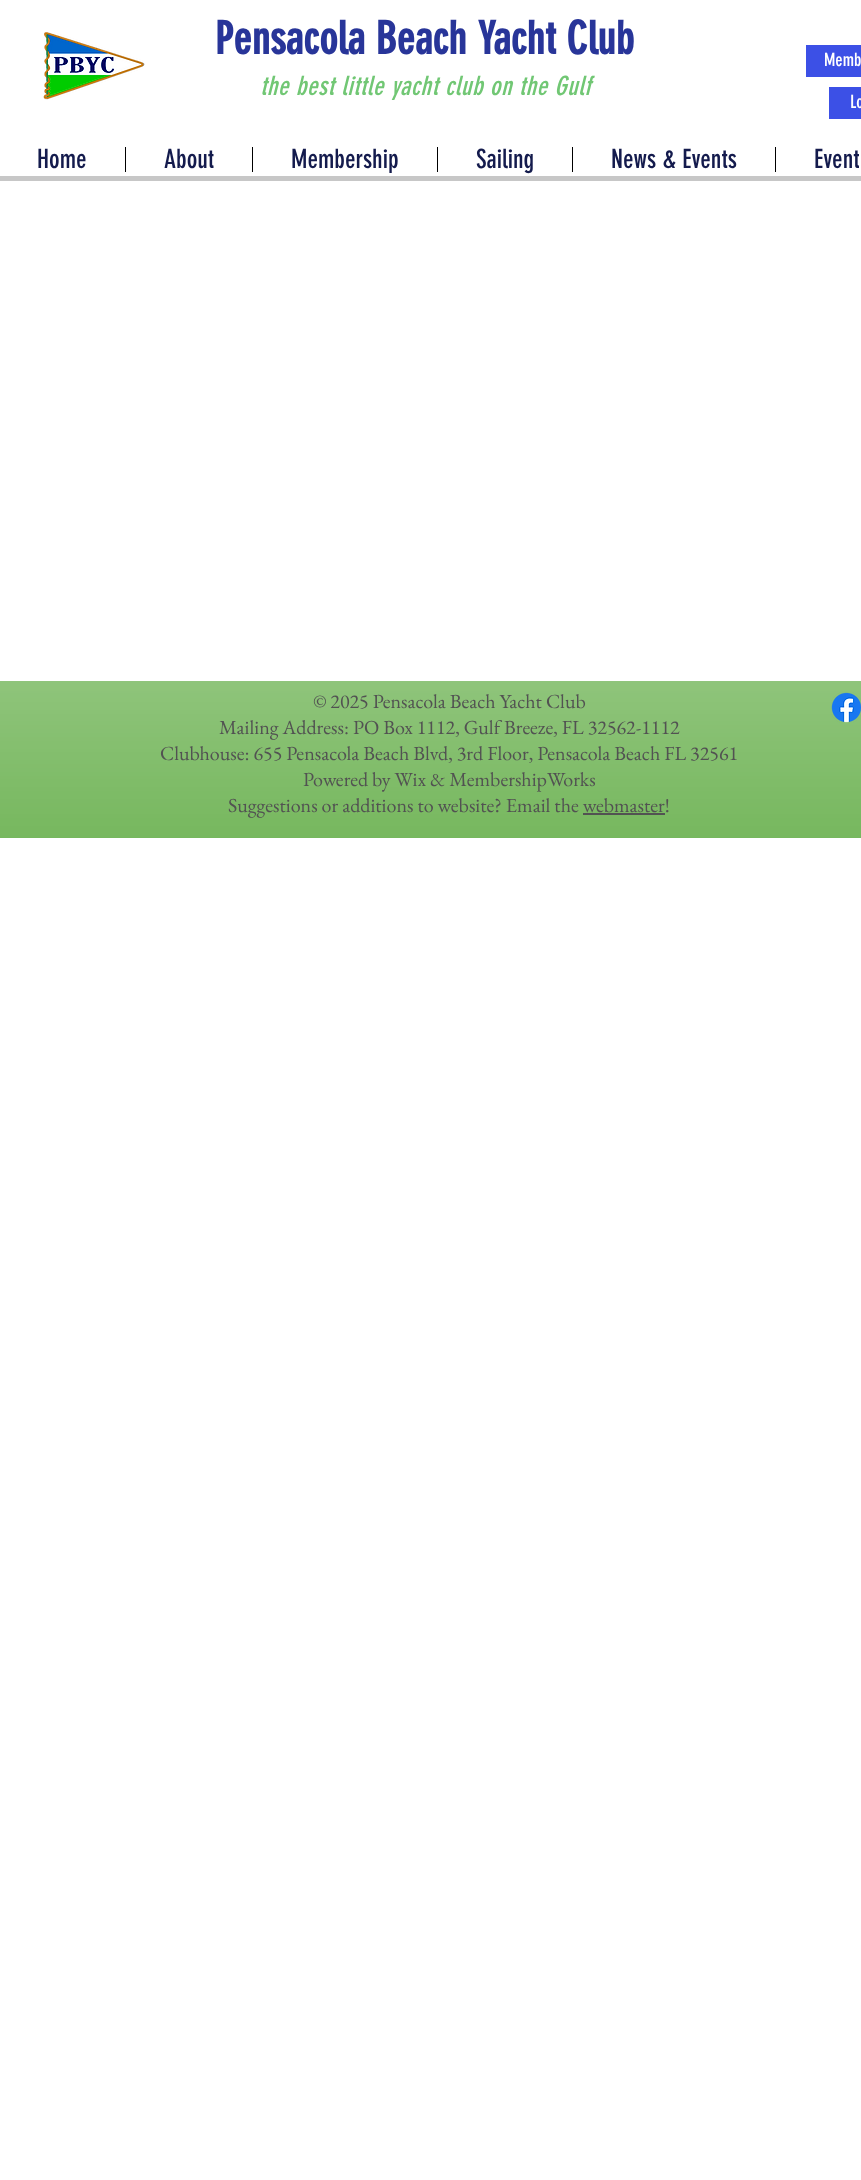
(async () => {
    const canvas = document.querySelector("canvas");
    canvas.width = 861;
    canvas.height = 2180;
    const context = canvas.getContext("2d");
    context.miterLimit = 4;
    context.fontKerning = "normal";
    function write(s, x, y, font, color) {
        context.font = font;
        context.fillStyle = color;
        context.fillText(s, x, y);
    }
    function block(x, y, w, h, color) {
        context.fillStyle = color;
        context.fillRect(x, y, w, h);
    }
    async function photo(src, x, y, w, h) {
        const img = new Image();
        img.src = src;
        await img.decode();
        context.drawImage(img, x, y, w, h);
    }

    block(0, 0, 861, 2180, "rgb(255, 255, 255)");
    await photo("media/1.png", 43, 32, 102, 68);
    write("Pensacola Beach Yacht Club", 215, 54, "bold 45px 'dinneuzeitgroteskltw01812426'", "rgb(40, 53, 153)");
    block(806, 45, 55, 32, "rgb(60, 80, 230)");
    write("Memb", 824, 66, "18px 'dinneuzeitgroteskltw01812426'", "rgb(255, 255, 255)");
    context.letterSpacing = "0.5px";
    write("the best little yacht club on the Gulf", 260, 95, "italic 26px 'dinneuzeitgroteskltw01812426'", "rgb(113, 199, 116)");
    block(829, 87, 32, 32, "rgb(60, 80, 230)");
    context.letterSpacing = "0px";
    write("Lo", 850, 108, "18px 'dinneuzeitgroteskltw01812426'", "rgb(255, 255, 255)");
    write("Home", 37, 168, "26px 'dinneuzeitgroteskltw01812426'", "rgb(20, 27, 77)");
    block(125, 147, 1, 25, "rgb(0, 0, 0)");
    write("About", 164, 168, "26px 'dinneuzeitgroteskltw01812426'", "rgb(20, 27, 77)");
    block(252, 147, 1, 25, "rgb(0, 0, 0)");
    write("Membership", 291, 168, "26px 'dinneuzeitgroteskltw01812426'", "rgb(20, 27, 77)");
    block(437, 147, 1, 25, "rgb(0, 0, 0)");
    write("Sailing", 476, 168, "26px 'dinneuzeitgroteskltw01812426'", "rgb(20, 27, 77)");
    block(572, 147, 1, 25, "rgb(0, 0, 0)");
    write("News & Events", 611, 168, "26px 'dinneuzeitgroteskltw01812426'", "rgb(20, 27, 77)");
    block(775, 147, 1, 25, "rgb(0, 0, 0)");
    write("Event", 814, 168, "26px 'dinneuzeitgroteskltw01812426'", "rgb(20, 27, 77)");
    block(0, 176, 861, 5, "rgb(199, 199, 199)");
    block(0, 681, 861, 157, "rgb(104, 176, 77)");
    await photo("media/2.png", 0, 681, 861, 157);
    write("© 2025 Pensacola Beach Yacht Club", 313, 708, "20px EB Garamond", "rgb(82, 82, 82)");
    write("Mailing Address: PO Box 1112, Gulf Breeze, FL 32562-1112", 219, 734, "20px EB Garamond", "rgb(82, 82, 82)");
    write("Clubhouse: 655 Pensacola Beach Blvd, 3rd Floor, Pensacola Beach FL 32561", 160, 760, "20px EB Garamond", "rgb(82, 82, 82)");
    write("Powered by Wix & MembershipWorks", 303, 786, "20px EB Garamond", "rgb(82, 82, 82)");
    write("Suggestions or additions to website? Email the webmaster!", 228, 812, "20px EB Garamond", "rgb(82, 82, 82)");
    block(583, 813, 82, 2, "rgb(82, 82, 82)");
    await photo("media/3.png", 831, 692, 30, 31);
})();
